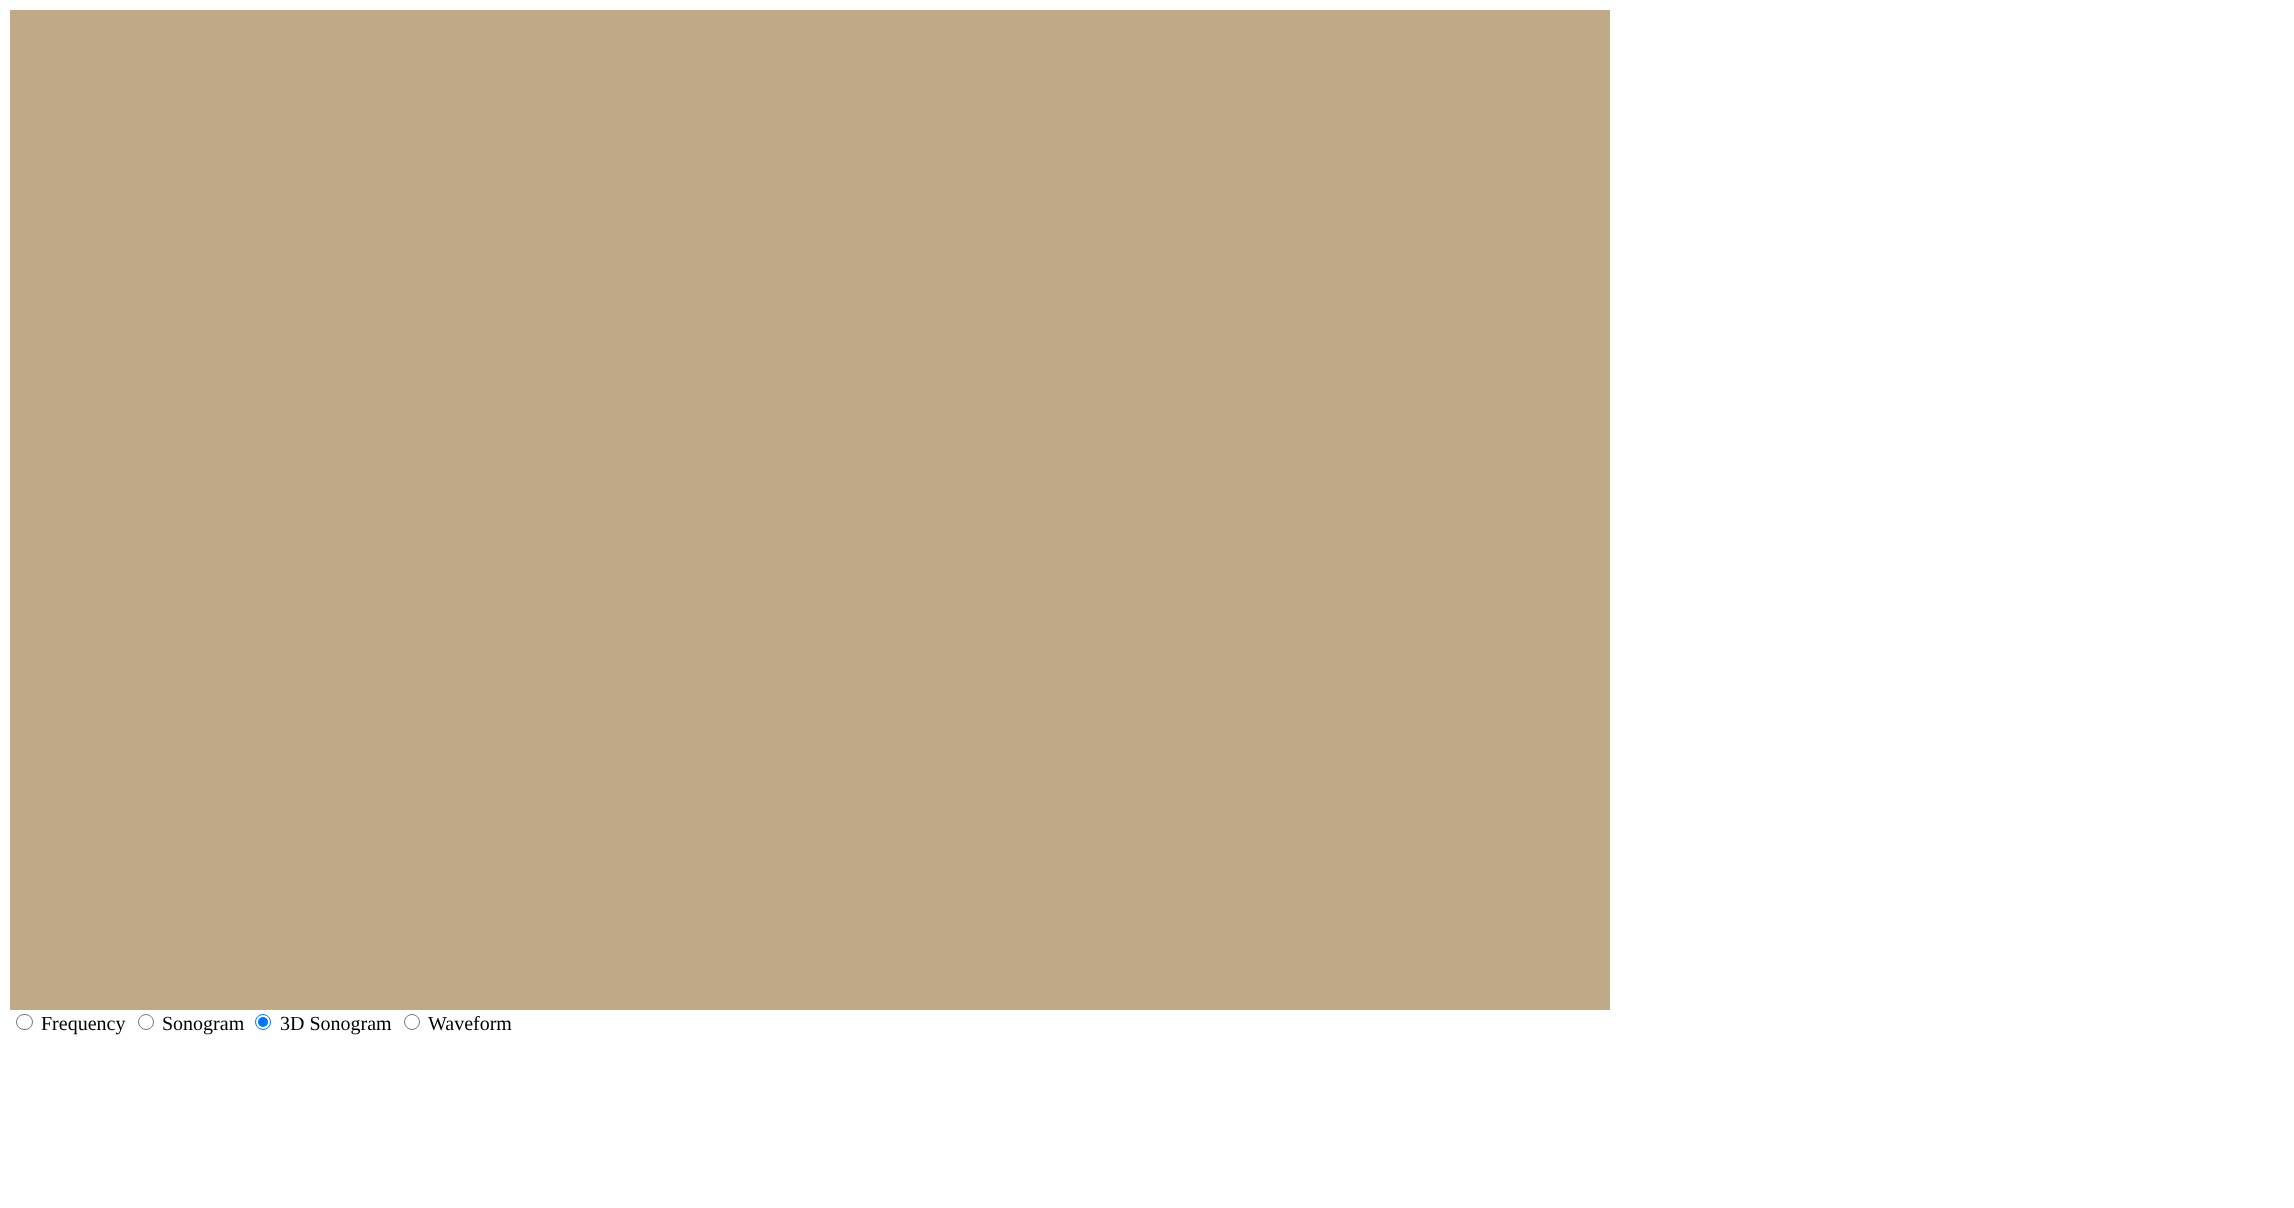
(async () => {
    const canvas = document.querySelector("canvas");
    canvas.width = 2294;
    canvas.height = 1208;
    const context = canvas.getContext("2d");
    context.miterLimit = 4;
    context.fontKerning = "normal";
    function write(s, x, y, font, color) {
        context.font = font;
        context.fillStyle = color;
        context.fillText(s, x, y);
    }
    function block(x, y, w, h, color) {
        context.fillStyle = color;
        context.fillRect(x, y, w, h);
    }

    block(0, 0, 2294, 1208, "rgb(255, 255, 255)");
    block(10, 10, 1600, 1000, "rgb(191, 169, 135)");
    context.beginPath();
    context.roundRect(16.5, 1014.5, 16, 15, 7.5);
    context.strokeStyle = "rgb(118, 118, 118)";
    context.stroke();
    write("Frequency", 41, 1030, "20px Liberation Serif", "rgb(0, 0, 0)");
    context.beginPath();
    context.arc(146, 1022, 7.5, 0, Math.PI * 2);
    context.stroke();
    write("Sonogram", 162, 1030, "20px Liberation Serif", "rgb(0, 0, 0)");
    context.beginPath();
    context.arc(263, 1022, 7.5, 0, Math.PI * 2);
    context.strokeStyle = "rgb(0, 117, 255)";
    context.stroke();
    context.fillStyle = "rgb(0, 117, 255)";
    context.beginPath();
    context.arc(263, 1022, 5, 0, Math.PI * 2);
    context.fill();
    write("3D Sonogram", 280, 1030, "20px Liberation Serif", "rgb(0, 0, 0)");
    context.beginPath();
    context.arc(412, 1022, 7.5, 0, Math.PI * 2);
    context.strokeStyle = "rgb(118, 118, 118)";
    context.stroke();
    write("Waveform", 428, 1030, "20px Liberation Serif", "rgb(0, 0, 0)");
})();
